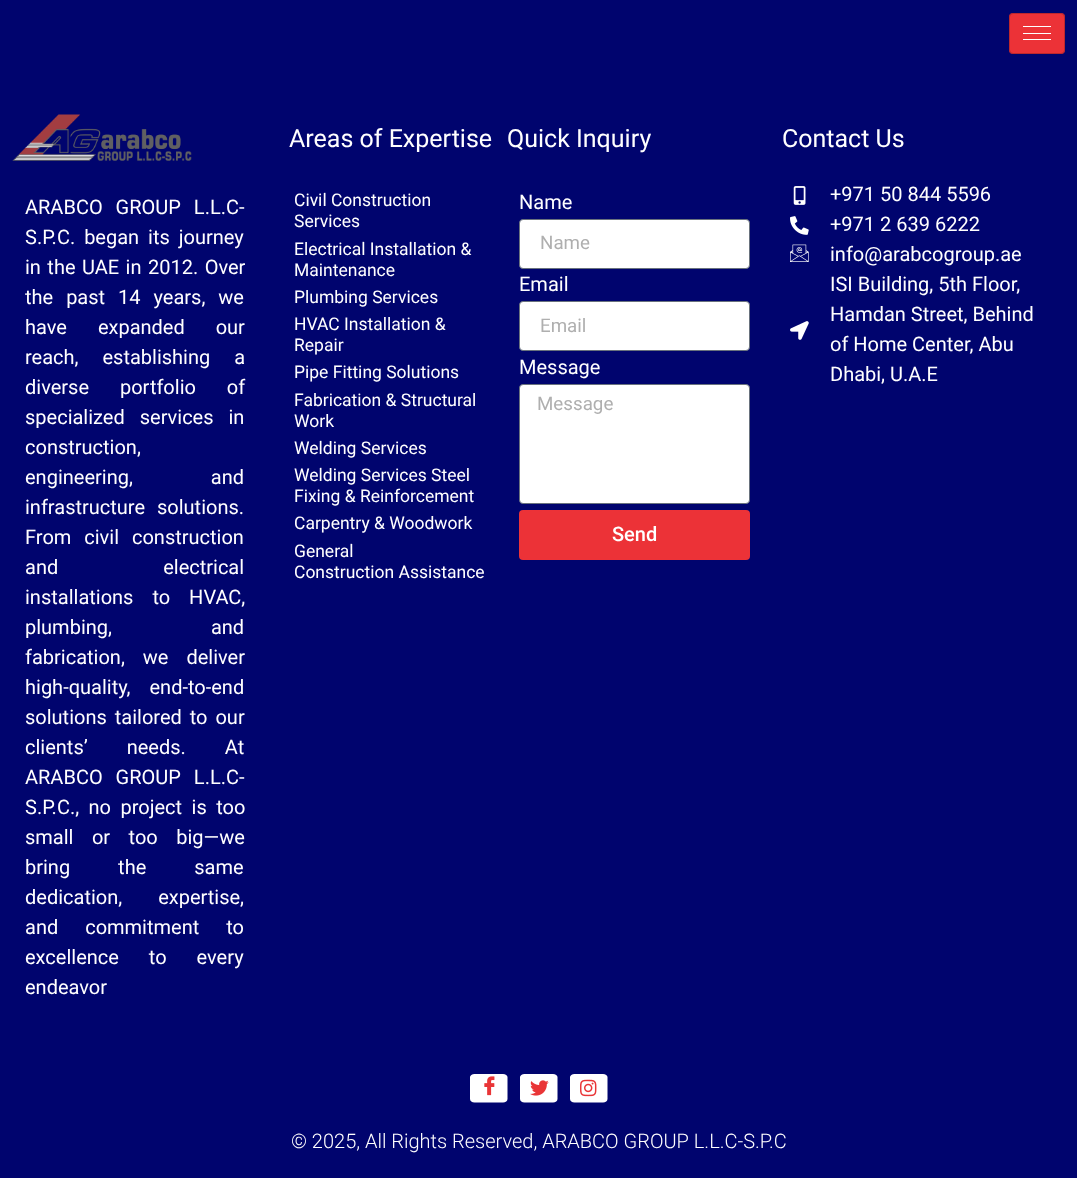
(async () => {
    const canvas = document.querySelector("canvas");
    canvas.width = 1077;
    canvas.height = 1178;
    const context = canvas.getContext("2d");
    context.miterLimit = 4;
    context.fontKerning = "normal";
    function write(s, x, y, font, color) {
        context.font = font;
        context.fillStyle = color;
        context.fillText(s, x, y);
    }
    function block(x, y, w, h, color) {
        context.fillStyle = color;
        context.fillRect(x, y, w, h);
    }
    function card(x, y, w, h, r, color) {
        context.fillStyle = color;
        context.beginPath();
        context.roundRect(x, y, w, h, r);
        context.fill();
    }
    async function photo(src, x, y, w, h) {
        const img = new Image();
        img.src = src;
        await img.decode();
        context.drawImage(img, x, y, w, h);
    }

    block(0, 0, 1077, 1178, "rgb(0, 4, 110)");
    card(1009, 13, 56, 41, 4, "rgb(236, 50, 55)");
    context.beginPath();
    context.roundRect(1009.5, 13.5, 55, 40, 3.5);
    context.strokeStyle = "rgba(0, 0, 0, 0.2)";
    context.stroke();
    block(1023, 26, 28, 1, "rgb(255, 255, 255)");
    block(1023, 33, 28, 1, "rgb(255, 255, 255)");
    block(1023, 39, 28, 1, "rgb(255, 255, 255)");
    await photo("media/1.png", 12, 114, 180, 47);
    write("Areas of Expertise", 289, 147, "25px Roboto", "rgb(255, 255, 255)");
    write("Quick Inquiry", 507, 147, "25px Roboto", "rgb(255, 255, 255)");
    write("Contact Us", 782, 147, "25px Roboto", "rgb(255, 255, 255)");
    context.wordSpacing = "8px";
    write("ARABCO GROUP L.L.C-", 25, 214, "20px Roboto", "rgb(255, 255, 255)");
    context.wordSpacing = "4px";
    write("S.P.C. began its journey", 25, 244, "20px Roboto", "rgb(255, 255, 255)");
    context.wordSpacing = "1.5px";
    write("in the UAE in 2012. Over", 25, 274, "20px Roboto", "rgb(255, 255, 255)");
    context.wordSpacing = "8px";
    write("the past 14 years, we", 25, 304, "20px Roboto", "rgb(255, 255, 255)");
    context.wordSpacing = "26px";
    write("have expanded our", 25, 334, "20px Roboto", "rgb(255, 255, 255)");
    context.wordSpacing = "19px";
    write("reach, establishing a", 25, 364, "20px Roboto", "rgb(255, 255, 255)");
    context.wordSpacing = "26px";
    write("diverse portfolio of", 25, 394, "20px Roboto", "rgb(255, 255, 255)");
    context.wordSpacing = "10px";
    write("specialized services in", 25, 424, "20px Roboto", "rgb(255, 255, 255)");
    context.wordSpacing = "0px";
    write("construction,", 25, 454, "20px Roboto", "rgb(255, 255, 255)");
    context.wordSpacing = "73px";
    write("engineering, and", 25, 484, "20px Roboto", "rgb(255, 255, 255)");
    context.wordSpacing = "7px";
    write("infrastructure solutions.", 25, 514, "20px Roboto", "rgb(255, 255, 255)");
    context.wordSpacing = "8px";
    write("From civil construction", 25, 544, "20px Roboto", "rgb(255, 255, 255)");
    context.wordSpacing = "100px";
    write("and electrical", 25, 574, "20px Roboto", "rgb(255, 255, 255)");
    context.wordSpacing = "14px";
    write("installations to HVAC,", 25, 604, "20px Roboto", "rgb(255, 255, 255)");
    context.wordSpacing = "94px";
    write("plumbing, and", 25, 634, "20px Roboto", "rgb(255, 255, 255)");
    context.wordSpacing = "13px";
    write("fabrication, we deliver", 25, 664, "20px Roboto", "rgb(255, 255, 255)");
    context.wordSpacing = "14px";
    write("high-quality, end-to-end", 25, 694, "20px Roboto", "rgb(255, 255, 255)");
    context.wordSpacing = "3px";
    write("solutions tailored to our", 25, 724, "20px Roboto", "rgb(255, 255, 255)");
    context.wordSpacing = "34px";
    write("clients’ needs. At", 25, 754, "20px Roboto", "rgb(255, 255, 255)");
    context.wordSpacing = "8px";
    write("ARABCO GROUP L.L.C-", 25, 784, "20px Roboto", "rgb(255, 255, 255)");
    context.wordSpacing = "4.5px";
    write("S.P.C., no project is too", 25, 814, "20px Roboto", "rgb(255, 255, 255)");
    context.wordSpacing = "13.5px";
    write("small or too big—we", 25, 844, "20px Roboto", "rgb(255, 255, 255)");
    context.wordSpacing = "43px";
    write("bring the same", 25, 874, "20px Roboto", "rgb(255, 255, 255)");
    context.wordSpacing = "31px";
    write("dedication, expertise,", 25, 904, "20px Roboto", "rgb(255, 255, 255)");
    context.wordSpacing = "22px";
    write("and commitment to", 25, 934, "20px Roboto", "rgb(255, 255, 255)");
    context.wordSpacing = "25px";
    write("excellence to every", 25, 964, "20px Roboto", "rgb(255, 255, 255)");
    context.wordSpacing = "0px";
    write("endeavor", 25, 994, "20px Roboto", "rgb(255, 255, 255)");
    write("Civil Construction", 294, 206, "17.5px Roboto", "rgb(255, 255, 255)");
    write("Services", 294, 227, "17.5px Roboto", "rgb(255, 255, 255)");
    write("Electrical Installation &", 294, 255, "17.5px Roboto", "rgb(255, 255, 255)");
    write("Maintenance", 294, 276, "17.5px Roboto", "rgb(255, 255, 255)");
    write("Plumbing Services", 294, 303, "17.5px Roboto", "rgb(255, 255, 255)");
    write("HVAC Installation &", 294, 330, "17.5px Roboto", "rgb(255, 255, 255)");
    write("Repair", 294, 351, "17.5px Roboto", "rgb(255, 255, 255)");
    write("Pipe Fitting Solutions", 294, 378, "17.5px Roboto", "rgb(255, 255, 255)");
    write("Fabrication & Structural", 294, 406, "17.5px Roboto", "rgb(255, 255, 255)");
    write("Work", 294, 427, "17.5px Roboto", "rgb(255, 255, 255)");
    write("Welding Services", 294, 454, "17.5px Roboto", "rgb(255, 255, 255)");
    write("Welding Services Steel", 294, 481, "17.5px Roboto", "rgb(255, 255, 255)");
    write("Fixing & Reinforcement", 294, 502, "17.5px Roboto", "rgb(255, 255, 255)");
    write("Carpentry & Woodwork", 294, 529, "17.5px Roboto", "rgb(255, 255, 255)");
    write("General", 294, 557, "17.5px Roboto", "rgb(255, 255, 255)");
    write("Construction Assistance", 294, 578, "17.5px Roboto", "rgb(255, 255, 255)");
    write("Name", 519, 209, "20px Roboto", "rgb(255, 255, 255)");
    context.beginPath();
    context.roundRect(519.5, 219.5, 230, 49, 3.5);
    context.fill();
    context.strokeStyle = "rgb(105, 114, 125)";
    context.stroke();
    write("Name", 540, 249, "18.75px Roboto", "rgb(175, 175, 175)");
    write("Email", 519, 291, "20px Roboto", "rgb(255, 255, 255)");
    context.beginPath();
    context.roundRect(519.5, 301.5, 230, 49, 3.5);
    context.fill();
    context.stroke();
    write("Email", 540, 332, "18.75px Roboto", "rgb(175, 175, 175)");
    write("Message", 519, 374, "20px Roboto", "rgb(255, 255, 255)");
    context.beginPath();
    context.roundRect(519.5, 384.5, 230, 119, 3.5);
    context.fill();
    context.stroke();
    write("Message", 537, 410, "18.75px Roboto", "rgb(175, 175, 175)");
    card(519, 510, 231, 50, 4, "rgb(236, 50, 55)");
    write("Send", 612, 541, "500 20px Roboto", "rgb(255, 255, 255)");
    await photo("media/2.png", 793, 186, 13, 19);
    write("+971 50 844 5596", 830, 201, "20px Roboto", "rgb(255, 255, 255)");
    await photo("media/3.png", 790, 216, 19, 19);
    write("+971 2 639 6222", 830, 231, "20px Roboto", "rgb(255, 255, 255)");
    await photo("media/4.png", 790, 244, 19, 18);
    write("info@arabcogroup.ae", 830, 261, "20px Roboto", "rgb(255, 255, 255)");
    await photo("media/5.png", 790, 321, 19, 19);
    write("ISI Building, 5th Floor,", 830, 291, "20px Roboto", "rgb(255, 255, 255)");
    write("Hamdan Street, Behind", 830, 321, "20px Roboto", "rgb(255, 255, 255)");
    write("of Home Center, Abu", 830, 351, "20px Roboto", "rgb(255, 255, 255)");
    write("Dhabi, U.A.E", 830, 381, "20px Roboto", "rgb(255, 255, 255)");
    context.beginPath();
    context.moveTo(474.5, 1074);
    context.lineTo(503, 1074);
    context.bezierCurveTo(505.5, 1074, 507.5, 1075.5, 507.5, 1077);
    context.lineTo(507.5, 1099);
    context.bezierCurveTo(507.5, 1101, 505.5, 1102.5, 503, 1102.5);
    context.lineTo(474.5, 1102.5);
    context.bezierCurveTo(472, 1102.5, 470, 1101, 470, 1099);
    context.lineTo(470, 1077);
    context.bezierCurveTo(470, 1075.5, 472, 1074, 474.5, 1074);
    context.closePath();
    context.fill();
    await photo("media/6.png", 484, 1076, 11, 20);
    context.beginPath();
    context.moveTo(524.5, 1074);
    context.lineTo(553, 1074);
    context.bezierCurveTo(555.5, 1074, 557.5, 1075.5, 557.5, 1077);
    context.lineTo(557.5, 1099);
    context.bezierCurveTo(557.5, 1101, 555.5, 1102.5, 553, 1102.5);
    context.lineTo(524.5, 1102.5);
    context.bezierCurveTo(522, 1102.5, 520, 1101, 520, 1099);
    context.lineTo(520, 1077);
    context.bezierCurveTo(520, 1075.5, 522, 1074, 524.5, 1074);
    context.closePath();
    context.fill();
    await photo("media/7.png", 530, 1080, 19, 16);
    context.beginPath();
    context.moveTo(574.5, 1074);
    context.lineTo(603, 1074);
    context.bezierCurveTo(605.5, 1074, 607.5, 1075.5, 607.5, 1077);
    context.lineTo(607.5, 1099);
    context.bezierCurveTo(607.5, 1101, 605.5, 1102.5, 603, 1102.5);
    context.lineTo(574.5, 1102.5);
    context.bezierCurveTo(572, 1102.5, 570, 1101, 570, 1099);
    context.lineTo(570, 1077);
    context.bezierCurveTo(570, 1075.5, 572, 1074, 574.5, 1074);
    context.closePath();
    context.fill();
    await photo("media/8.png", 580, 1079, 17, 18);
    write("© 2025, All Rights Reserved, ARABCO GROUP L.L.C-S.P.C", 291, 1148, "300 20px Roboto", "rgb(255, 255, 255)");
})();
